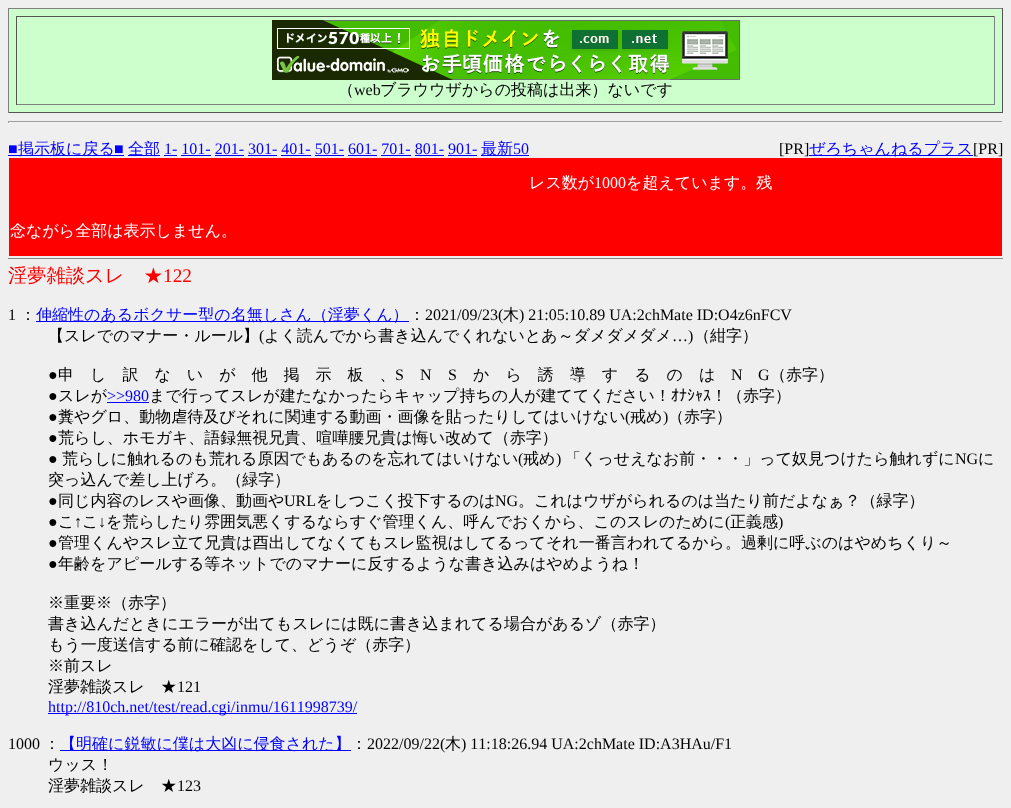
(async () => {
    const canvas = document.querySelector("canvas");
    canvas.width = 1011;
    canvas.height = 808;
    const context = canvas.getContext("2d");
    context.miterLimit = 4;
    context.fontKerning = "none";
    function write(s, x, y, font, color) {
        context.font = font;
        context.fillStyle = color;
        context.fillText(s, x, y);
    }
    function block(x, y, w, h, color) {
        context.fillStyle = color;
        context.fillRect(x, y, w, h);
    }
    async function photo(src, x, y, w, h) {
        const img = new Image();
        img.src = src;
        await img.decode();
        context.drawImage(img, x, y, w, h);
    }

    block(0, 0, 1011, 808, "rgb(239, 239, 239)");
    block(9, 9, 993, 103, "rgb(204, 255, 204)");
    block(8, 8, 995, 1, "rgb(128, 128, 128)");
    block(1002, 8, 1, 105, "rgb(85, 85, 85)");
    block(8, 112, 995, 1, "rgb(85, 85, 85)");
    block(8, 8, 1, 105, "rgb(128, 128, 128)");
    block(16, 16, 979, 1, "rgb(85, 85, 85)");
    block(994, 16, 1, 89, "rgb(128, 128, 128)");
    block(16, 104, 979, 1, "rgb(128, 128, 128)");
    block(16, 16, 1, 89, "rgb(85, 85, 85)");
    await photo("media/1.png", 272, 20, 468, 60);
    write("（", 338, 95, "500 16px WenQuanYi Zen Hei", "rgb(0, 0, 0)");
    write("web", 354, 95, "16px Liberation Serif", "rgb(0, 0, 0)");
    write("ブラウウザからの投稿は出来）ないです", 380, 95, "500 16px WenQuanYi Zen Hei", "rgb(0, 0, 0)");
    block(8, 121, 995, 1, "rgb(159, 159, 159)");
    block(1002, 121, 1, 2, "rgb(238, 238, 238)");
    block(8, 121, 1, 2, "rgb(159, 159, 159)");
    write("■", 8, 154, "16px Liberation Serif", "rgb(0, 0, 255)");
    block(8, 155, 116, 1, "rgb(0, 0, 255)");
    write("掲示板に戻る", 18, 154, "500 16px WenQuanYi Zen Hei", "rgb(0, 0, 255)");
    write("■", 114, 154, "16px Liberation Serif", "rgb(0, 0, 255)");
    block(128, 155, 32, 1, "rgb(0, 0, 255)");
    write("全部", 128, 154, "500 16px WenQuanYi Zen Hei", "rgb(0, 0, 255)");
    write("1- 101- 201- 301- 401- 501- 601- 701- 801- 901-", 164, 154, "16px Liberation Serif", "rgb(0, 0, 255)");
    block(164, 155, 13, 1, "rgb(0, 0, 255)");
    block(481, 155, 48, 1, "rgb(0, 0, 255)");
    write("最新", 481, 154, "500 16px WenQuanYi Zen Hei", "rgb(0, 0, 255)");
    write("50", 513, 154, "16px Liberation Serif", "rgb(0, 0, 255)");
    block(181, 155, 30, 1, "rgb(0, 0, 255)");
    block(215, 155, 29, 1, "rgb(0, 0, 255)");
    block(248, 155, 29, 1, "rgb(0, 0, 255)");
    block(281, 155, 30, 1, "rgb(0, 0, 255)");
    block(315, 155, 29, 1, "rgb(0, 0, 255)");
    block(348, 155, 29, 1, "rgb(0, 0, 255)");
    block(381, 155, 30, 1, "rgb(0, 0, 255)");
    block(415, 155, 29, 1, "rgb(0, 0, 255)");
    block(448, 155, 29, 1, "rgb(0, 0, 255)");
    write("[PR]", 779, 154, "16px Liberation Serif", "rgb(0, 0, 0)");
    block(809, 155, 164, 1, "rgb(0, 0, 255)");
    write("ぜろちゃんねるプラス", 809, 154, "500 16px WenQuanYi Zen Hei", "rgb(0, 0, 255)");
    write("[PR]", 973, 154, "16px Liberation Serif", "rgb(0, 0, 0)");
    block(9, 158, 993, 98, "rgb(255, 0, 0)");
    write("レス数が", 529, 188, "500 16px WenQuanYi Zen Hei", "rgb(255, 255, 255)");
    write("1000", 594, 188, "16px Liberation Serif", "rgb(255, 255, 255)");
    write("を超えています。残", 626, 188, "500 16px WenQuanYi Zen Hei", "rgb(255, 255, 255)");
    write("念ながら全部は表示しません。", 10, 236, "500 16px WenQuanYi Zen Hei", "rgb(255, 255, 255)");
    block(8, 258, 995, 1, "rgb(136, 136, 136)");
    write("淫夢雑談スレ　★", 8, 282, "500 19.25px WenQuanYi Zen Hei", "rgb(255, 0, 0)");
    write("122", 163, 282, "19.25px Liberation Serif", "rgb(255, 0, 0)");
    write("1", 8, 320, "16px Liberation Serif", "rgb(0, 0, 0)");
    write("：", 20, 320, "500 16px WenQuanYi Zen Hei", "rgb(0, 0, 0)");
    block(36, 321, 373, 1, "rgb(0, 0, 255)");
    write("伸縮性のあるボクサー型の名無しさん（淫夢くん）", 36, 320, "500 16px WenQuanYi Zen Hei", "rgb(0, 0, 255)");
    write("：", 409, 320, "500 16px WenQuanYi Zen Hei", "rgb(0, 0, 0)");
    write("2021/09/23(", 425, 320, "16px Liberation Serif", "rgb(0, 0, 0)");
    write("木", 503, 320, "500 16px WenQuanYi Zen Hei", "rgb(0, 0, 0)");
    write(") 21:05:10.89 UA:2chMate ID:O4z6nFCV", 519, 320, "16px Liberation Serif", "rgb(0, 0, 0)");
    write("【スレでのマナー・ルール】", 48, 341, "500 16px WenQuanYi Zen Hei", "rgb(0, 0, 0)");
    write("(", 259, 341, "16px Liberation Serif", "rgb(0, 0, 0)");
    write("よく読んでから書き込んでくれないとあ～ダメダメダメ", 264, 341, "500 16px WenQuanYi Zen Hei", "rgb(0, 0, 0)");
    write("…)", 672, 341, "16px Liberation Serif", "rgb(0, 0, 0)");
    write("（紺字）", 694, 341, "500 16px WenQuanYi Zen Hei", "rgb(0, 0, 0)");
    write("●", 48, 380, "16px Liberation Serif", "rgb(0, 0, 0)");
    write("申　し　訳　な　い　が　他　掲　示　板　、", 58, 380, "500 16px WenQuanYi Zen Hei", "rgb(0, 0, 0)");
    write("S", 395, 380, "16px Liberation Serif", "rgb(0, 0, 0)");
    write("N", 420, 380, "16px Liberation Serif", "rgb(0, 0, 0)");
    write("S", 448, 380, "16px Liberation Serif", "rgb(0, 0, 0)");
    write("か　ら　誘　導　す　る　の　は", 473, 380, "500 16px WenQuanYi Zen Hei", "rgb(0, 0, 0)");
    write("N", 731, 380, "16px Liberation Serif", "rgb(0, 0, 0)");
    write("G", 758, 380, "16px Liberation Serif", "rgb(0, 0, 0)");
    write("（赤字）", 770, 380, "500 16px WenQuanYi Zen Hei", "rgb(0, 0, 0)");
    write("●", 48, 401, "16px Liberation Serif", "rgb(0, 0, 0)");
    write("スレが", 58, 401, "500 16px WenQuanYi Zen Hei", "rgb(0, 0, 0)");
    write(">>980", 107, 401, "16px Liberation Serif", "rgb(0, 0, 255)");
    block(107, 402, 42, 1, "rgb(0, 0, 255)");
    write("まで行ってスレが建たなかったらキャップ持ちの人が建ててください！", 149, 401, "500 16px WenQuanYi Zen Hei", "rgb(0, 0, 0)");
    write("ｵﾅｼｬｽ", 671, 401, "16px IPAPGothic", "rgb(0, 0, 0)");
    write("！（赤字）", 711, 401, "500 16px WenQuanYi Zen Hei", "rgb(0, 0, 0)");
    write("●", 48, 422, "16px Liberation Serif", "rgb(0, 0, 0)");
    write("糞やグロ、動物虐待及びそれに関連する動画・画像を貼ったりしてはいけない", 58, 422, "500 16px WenQuanYi Zen Hei", "rgb(0, 0, 0)");
    write("(", 625, 422, "16px Liberation Serif", "rgb(0, 0, 0)");
    write("戒め", 630, 422, "500 16px WenQuanYi Zen Hei", "rgb(0, 0, 0)");
    write(")", 663, 422, "16px Liberation Serif", "rgb(0, 0, 0)");
    write("（赤字）", 668, 422, "500 16px WenQuanYi Zen Hei", "rgb(0, 0, 0)");
    write("●", 48, 443, "16px Liberation Serif", "rgb(0, 0, 0)");
    write("荒らし、ホモガキ、語録無視兄貴、喧嘩腰兄貴は悔い改めて（赤字）", 58, 443, "500 16px WenQuanYi Zen Hei", "rgb(0, 0, 0)");
    write("●", 48, 464, "16px Liberation Serif", "rgb(0, 0, 0)");
    write("荒らしに触れるのも荒れる原因でもあるのを忘れてはいけない", 62, 464, "500 16px WenQuanYi Zen Hei", "rgb(0, 0, 0)");
    write("(", 518, 464, "16px Liberation Serif", "rgb(0, 0, 0)");
    write("戒め", 523, 464, "500 16px WenQuanYi Zen Hei", "rgb(0, 0, 0)");
    write(")", 556, 464, "16px Liberation Serif", "rgb(0, 0, 0)");
    write("「くっせえなお前・・・」って奴見つけたら触れずに", 565, 464, "500 16px WenQuanYi Zen Hei", "rgb(0, 0, 0)");
    write("NG", 955, 464, "16px Liberation Serif", "rgb(0, 0, 0)");
    write("に", 978, 464, "500 16px WenQuanYi Zen Hei", "rgb(0, 0, 0)");
    write("突っ込んで差し上げろ。（緑字）", 48, 485, "500 16px WenQuanYi Zen Hei", "rgb(0, 0, 0)");
    write("●", 48, 506, "16px Liberation Serif", "rgb(0, 0, 0)");
    write("同じ内容のレスや画像、動画や", 58, 506, "500 16px WenQuanYi Zen Hei", "rgb(0, 0, 0)");
    write("URL", 284, 506, "16px Liberation Serif", "rgb(0, 0, 0)");
    write("をしつこく投下するのは", 316, 506, "500 16px WenQuanYi Zen Hei", "rgb(0, 0, 0)");
    write("NG", 495, 506, "16px Liberation Serif", "rgb(0, 0, 0)");
    write("。これはウザがられるのは当たり前だよなぁ？（緑字）", 518, 506, "500 16px WenQuanYi Zen Hei", "rgb(0, 0, 0)");
    write("●", 48, 527, "16px Liberation Serif", "rgb(0, 0, 0)");
    write("こ", 58, 527, "500 16px WenQuanYi Zen Hei", "rgb(0, 0, 0)");
    write("↑", 74, 527, "16px Liberation Serif", "rgb(0, 0, 0)");
    write("こ", 82, 527, "500 16px WenQuanYi Zen Hei", "rgb(0, 0, 0)");
    write("↓", 98, 527, "16px Liberation Serif", "rgb(0, 0, 0)");
    write("を荒らしたり雰囲気悪くするならすぐ管理くん、呼んでおくから、このスレのために", 106, 527, "500 16px WenQuanYi Zen Hei", "rgb(0, 0, 0)");
    write("(", 725, 527, "16px Liberation Serif", "rgb(0, 0, 0)");
    write("正義感", 730, 527, "500 16px WenQuanYi Zen Hei", "rgb(0, 0, 0)");
    write(")", 778, 527, "16px Liberation Serif", "rgb(0, 0, 0)");
    write("●", 48, 548, "16px Liberation Serif", "rgb(0, 0, 0)");
    write("管理くんやスレ立て兄貴は酉出してなくてもスレ監視はしてるってそれ一番言われてるから。過剰に呼ぶのはやめちくり～", 58, 548, "500 16px WenQuanYi Zen Hei", "rgb(0, 0, 0)");
    write("●", 48, 569, "16px Liberation Serif", "rgb(0, 0, 0)");
    write("年齢をアピールする等ネットでのマナーに反するような書き込みはやめようね！", 58, 569, "500 16px WenQuanYi Zen Hei", "rgb(0, 0, 0)");
    write("※重要※（赤字）", 48, 608, "500 16px WenQuanYi Zen Hei", "rgb(0, 0, 0)");
    write("書き込んだときにエラーが出てもスレには既に書き込まれてる場合があるゾ（赤字）", 48, 629, "500 16px WenQuanYi Zen Hei", "rgb(0, 0, 0)");
    write("もう一度送信する前に確認をして、どうぞ（赤字）", 48, 650, "500 16px WenQuanYi Zen Hei", "rgb(0, 0, 0)");
    write("※前スレ", 48, 671, "500 16px WenQuanYi Zen Hei", "rgb(0, 0, 0)");
    write("淫夢雑談スレ　★", 48, 692, "500 16px WenQuanYi Zen Hei", "rgb(0, 0, 0)");
    write("121", 177, 692, "16px Liberation Serif", "rgb(0, 0, 0)");
    block(48, 713, 309, 1, "rgb(0, 0, 255)");
    write("http://810ch.net/test/read.cgi/inmu/1611998739/", 48, 712, "16px Liberation Serif", "rgb(0, 0, 255)");
    write("1000", 8, 749, "16px Liberation Serif", "rgb(0, 0, 0)");
    write("：", 44, 749, "500 16px WenQuanYi Zen Hei", "rgb(0, 0, 0)");
    block(60, 750, 291, 1, "rgb(0, 0, 255)");
    write("【明確に鋭敏に僕は大凶に侵食された】", 60, 749, "500 16px WenQuanYi Zen Hei", "rgb(0, 0, 255)");
    write("：", 351, 749, "500 16px WenQuanYi Zen Hei", "rgb(0, 0, 0)");
    write("2022/09/22(", 367, 749, "16px Liberation Serif", "rgb(0, 0, 0)");
    write("木", 445, 749, "500 16px WenQuanYi Zen Hei", "rgb(0, 0, 0)");
    write(") 11:18:26.94 UA:2chMate ID:A3HAu/F1", 461, 749, "16px Liberation Serif", "rgb(0, 0, 0)");
    write("ウッス！", 48, 770, "500 16px WenQuanYi Zen Hei", "rgb(0, 0, 0)");
    write("淫夢雑談スレ　★", 48, 791, "500 16px WenQuanYi Zen Hei", "rgb(0, 0, 0)");
    write("123", 177, 791, "16px Liberation Serif", "rgb(0, 0, 0)");
})();
